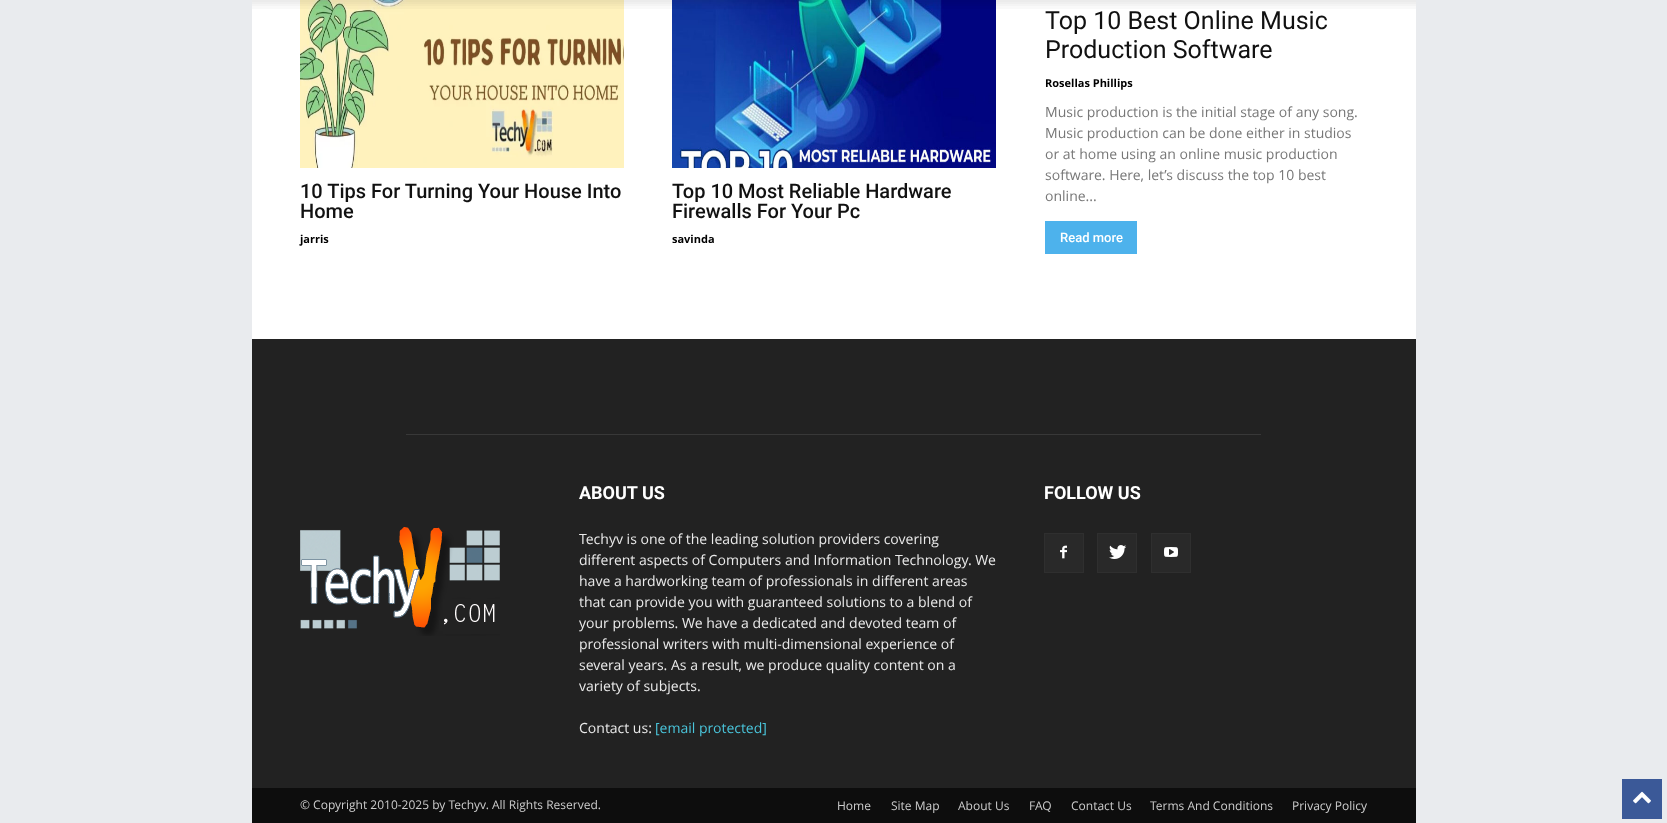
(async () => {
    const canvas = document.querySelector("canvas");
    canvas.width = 1667;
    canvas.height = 823;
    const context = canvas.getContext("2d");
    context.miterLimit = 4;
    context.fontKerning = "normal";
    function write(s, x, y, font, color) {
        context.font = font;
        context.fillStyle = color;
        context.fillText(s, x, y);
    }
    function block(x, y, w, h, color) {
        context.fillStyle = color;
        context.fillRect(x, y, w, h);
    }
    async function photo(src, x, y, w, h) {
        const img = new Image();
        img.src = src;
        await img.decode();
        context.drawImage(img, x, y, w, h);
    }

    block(0, 0, 1667, 823, "rgb(233, 235, 238)");
    block(252, 0, 1164, 339, "rgb(255, 255, 255)");
    await photo("media/2.png", 300, 0, 324, 168);
    await photo("media/3.png", 672, 0, 324, 168);
    await photo("media/1.png", 252, 0, 1164, 9);
    write("10 Tips For Turning Your House Into", 300, 198, "500 20px Roboto", "rgb(17, 17, 17)");
    write("Home", 300, 218, "500 20px Roboto", "rgb(17, 17, 17)");
    write("jarris", 300, 243, "bold 11px Open Sans", "rgb(0, 0, 0)");
    write("Top 10 Most Reliable Hardware", 672, 198, "500 20px Roboto", "rgb(17, 17, 17)");
    write("Firewalls For Your Pc", 672, 218, "500 20px Roboto", "rgb(17, 17, 17)");
    write("savinda", 672, 243, "bold 11px Open Sans", "rgb(0, 0, 0)");
    write("Top 10 Best Online Music", 1045, 29, "25px Roboto", "rgb(17, 17, 17)");
    write("Production Software", 1045, 58, "25px Roboto", "rgb(17, 17, 17)");
    write("Rosellas Phillips", 1045, 87, "bold 11px Open Sans", "rgb(0, 0, 0)");
    write("Music production is the initial stage of any song.", 1045, 117, "14px Open Sans", "rgb(119, 119, 119)");
    write("Music production can be done either in studios", 1045, 138, "14px Open Sans", "rgb(119, 119, 119)");
    write("or at home using an online music production", 1045, 159, "14px Open Sans", "rgb(119, 119, 119)");
    write("software. Here, let’s discuss the top 10 best", 1045, 180, "14px Open Sans", "rgb(119, 119, 119)");
    write("online...", 1045, 201, "14px Open Sans", "rgb(119, 119, 119)");
    block(1045, 221, 92, 33, "rgb(77, 178, 236)");
    write("Read more", 1060, 242, "500 13px Roboto", "rgb(255, 255, 255)");
    block(252, 339, 1164, 449, "rgb(34, 34, 34)");
    block(406, 434, 855, 1, "rgb(56, 56, 56)");
    write("ABOUT US", 579, 499, "bold 18px Roboto", "rgb(255, 255, 255)");
    write("Techyv is one of the leading solution providers covering", 579, 544, "14px Open Sans", "rgb(234, 234, 234)");
    write("different aspects of Computers and Information Technology. We", 579, 565, "14px Open Sans", "rgb(234, 234, 234)");
    write("have a hardworking team of professionals in different areas", 579, 586, "14px Open Sans", "rgb(234, 234, 234)");
    write("that can provide you with guaranteed solutions to a blend of", 579, 607, "14px Open Sans", "rgb(234, 234, 234)");
    write("your problems. We have a dedicated and devoted team of", 579, 628, "14px Open Sans", "rgb(234, 234, 234)");
    write("professional writers with multi-dimensional experience of", 579, 649, "14px Open Sans", "rgb(234, 234, 234)");
    write("several years. As a result, we produce quality content on a", 579, 670, "14px Open Sans", "rgb(234, 234, 234)");
    write("variety of subjects.", 579, 691, "14px Open Sans", "rgb(234, 234, 234)");
    write("Contact us:", 579, 733, "14px Open Sans", "rgb(234, 234, 234)");
    write("[email protected]", 655, 733, "14px Open Sans", "rgb(74, 197, 219)");
    write("FOLLOW US", 1044, 499, "bold 18px Roboto", "rgb(255, 255, 255)");
    block(1045, 534, 38, 38, "rgb(41, 41, 41)");
    await photo("media/4.png", 1060, 545, 7, 14);
    context.strokeStyle = "rgb(47, 47, 47)";
    context.strokeRect(1044.5, 533.5, 39, 39);
    block(1098, 534, 38, 38, "rgb(41, 41, 41)");
    await photo("media/5.png", 1109, 545, 18, 14);
    context.strokeRect(1097.5, 533.5, 39, 39);
    block(1152, 534, 38, 38, "rgb(41, 41, 41)");
    await photo("media/6.png", 1164, 547, 14, 10);
    context.strokeRect(1151.5, 533.5, 39, 39);
    await photo("media/7.png", 300, 527, 200, 109);
    block(252, 788, 1164, 35, "rgb(13, 13, 13)");
    write("© Copyright 2010-2025 by Techyv. All Rights Reserved.", 300, 809, "12px Open Sans", "rgb(204, 204, 204)");
    write("Home", 837, 810, "12px Open Sans", "rgb(204, 204, 204)");
    write("Site Map", 891, 810, "12px Open Sans", "rgb(204, 204, 204)");
    write("About Us", 958, 810, "12px Open Sans", "rgb(204, 204, 204)");
    write("FAQ", 1029, 810, "12px Open Sans", "rgb(204, 204, 204)");
    write("Contact Us", 1071, 810, "12px Open Sans", "rgb(204, 204, 204)");
    write("Terms And Conditions", 1150, 810, "12px Open Sans", "rgb(204, 204, 204)");
    write("Privacy Policy", 1292, 810, "12px Open Sans", "rgb(204, 204, 204)");
    block(1622, 779, 40, 40, "rgb(59, 89, 152)");
    await photo("media/8.png", 1633, 791, 18, 13);
})();
